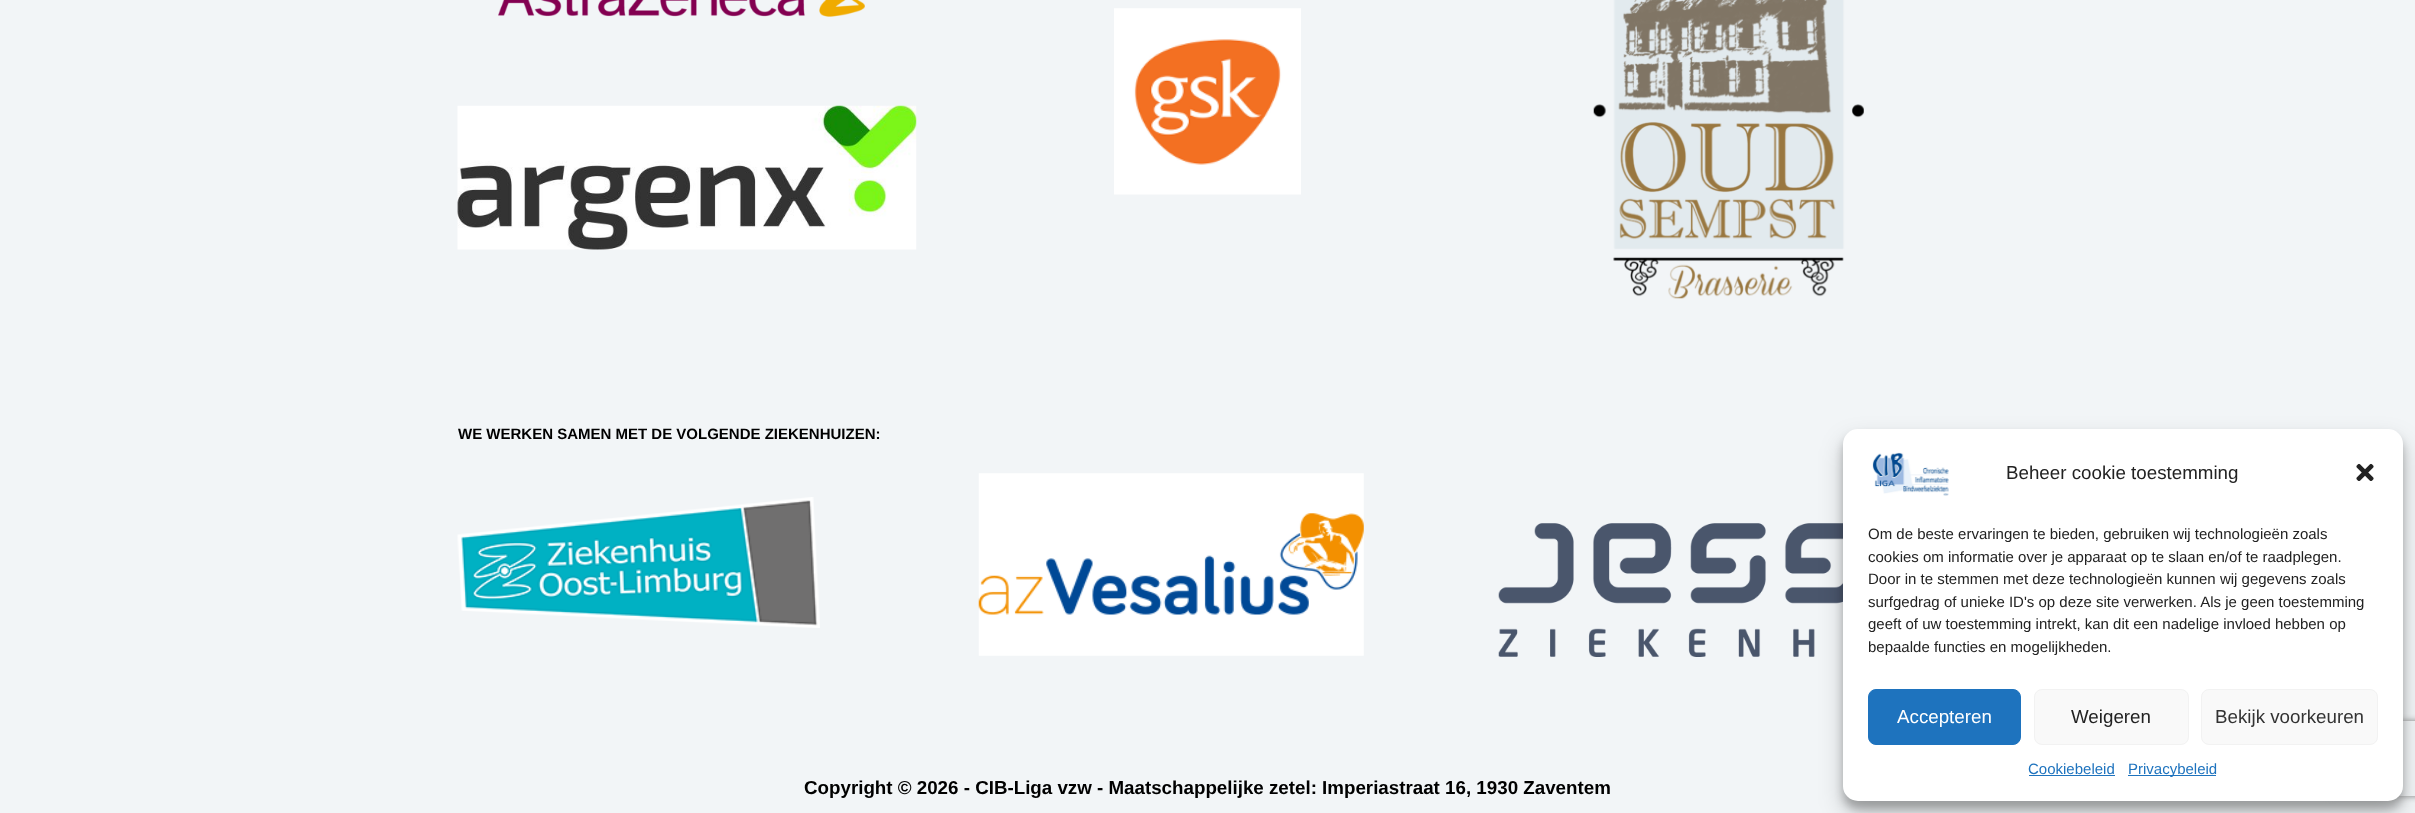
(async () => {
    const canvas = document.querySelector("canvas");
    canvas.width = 2415;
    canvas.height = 813;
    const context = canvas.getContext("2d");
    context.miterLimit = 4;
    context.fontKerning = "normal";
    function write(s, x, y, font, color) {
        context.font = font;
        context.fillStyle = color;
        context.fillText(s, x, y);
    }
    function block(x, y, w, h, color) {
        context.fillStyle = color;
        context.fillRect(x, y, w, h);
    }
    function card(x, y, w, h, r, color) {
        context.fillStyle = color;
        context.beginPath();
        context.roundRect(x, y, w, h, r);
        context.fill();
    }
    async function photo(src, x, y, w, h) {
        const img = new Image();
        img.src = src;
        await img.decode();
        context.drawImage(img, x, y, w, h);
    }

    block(0, 0, 2415, 813, "rgb(242, 245, 247)");
    await photo("media/1.png", 498, 0, 367, 17);
    await photo("media/2.png", 457, 105, 460, 145);
    await photo("media/3.png", 1114, 8, 187, 187);
    await photo("media/4.png", 1593, 0, 271, 299);
    write("WE WERKEN SAMEN MET DE VOLGENDE ZIEKENHUIZEN:", 458, 439, "bold 15px Liberation Sans", "rgb(0, 0, 0)");
    await photo("media/5.png", 457, 497, 363, 131);
    await photo("media/6.png", 978, 473, 386, 183);
    await photo("media/7.png", 1498, 523, 345, 134);
    write("Copyright © 2026 - CIB-Liga vzw - Maatschappelijke zetel: Imperiastraat 16, 1930 Zaventem", 804, 794, "bold 18.75px Liberation Sans", "rgb(0, 0, 0)");
    context.fillStyle = "rgba(0, 0, 0, 0.23)";
    context.filter = "blur(4px)";
    context.beginPath();
    context.roundRect(1843, 436, 560, 373, 15);
    context.fill();
    context.filter = "none";
    context.fillStyle = "rgba(0, 0, 0, 0.19)";
    context.filter = "blur(12.5px)";
    context.beginPath();
    context.roundRect(1843, 441, 560, 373, 15);
    context.fill();
    context.filter = "none";
    context.save();
    context.beginPath();
    context.moveTo(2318, 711);
    context.lineTo(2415, 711);
    context.lineTo(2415, 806);
    context.lineTo(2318, 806);
    context.closePath();
    context.moveTo(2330.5, 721);
    context.lineTo(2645.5, 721);
    context.bezierCurveTo(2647, 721, 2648, 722, 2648, 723.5);
    context.lineTo(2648, 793.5);
    context.bezierCurveTo(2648, 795, 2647, 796, 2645.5, 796);
    context.lineTo(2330.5, 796);
    context.bezierCurveTo(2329, 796, 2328, 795, 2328, 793.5);
    context.lineTo(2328, 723.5);
    context.bezierCurveTo(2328, 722, 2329, 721, 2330.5, 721);
    context.closePath();
    context.clip("evenodd");
    context.fillStyle = "rgb(128, 128, 128)";
    context.filter = "blur(3px)";
    context.beginPath();
    context.roundRect(2328, 721, 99, 75, 2.5);
    context.fill();
    context.filter = "none";
    context.restore();
    card(1843, 429, 560, 372, 15, "rgb(255, 255, 255)");
    await photo("media/8.png", 1872, 452, 77, 44);
    write("Beheer cookie toestemming", 2006, 479, "18.75px Liberation Sans", "rgb(34, 34, 34)");
    await photo("media/9.png", 2356, 463, 18, 18);
    write("Om de beste ervaringen te bieden, gebruiken wij technologieën zoals", 1868, 539, "15px Liberation Sans", "rgb(34, 34, 34)");
    write("cookies om informatie over je apparaat op te slaan en/of te raadplegen.", 1868, 562, "15px Liberation Sans", "rgb(34, 34, 34)");
    write("Door in te stemmen met deze technologieën kunnen wij gegevens zoals", 1868, 584, "15px Liberation Sans", "rgb(34, 34, 34)");
    write("surfgedrag of unieke ID's op deze site verwerken. Als je geen toestemming", 1868, 607, "15px Liberation Sans", "rgb(34, 34, 34)");
    write("geeft of uw toestemming intrekt, kan dit een nadelige invloed hebben op", 1868, 629, "15px Liberation Sans", "rgb(34, 34, 34)");
    write("bepaalde functies en mogelijkheden.", 1868, 652, "15px Liberation Sans", "rgb(34, 34, 34)");
    context.fillStyle = "rgb(30, 115, 190)";
    context.beginPath();
    context.roundRect(1868.5, 689.5, 152, 55, 7.5);
    context.fill();
    context.strokeStyle = "rgb(30, 115, 190)";
    context.stroke();
    write("Accepteren", 1897, 723, "18.75px Liberation Sans", "rgb(255, 255, 255)");
    context.fillStyle = "rgb(249, 249, 249)";
    context.beginPath();
    context.roundRect(2034.5, 689.5, 154, 55, 7.5);
    context.fill();
    context.strokeStyle = "rgb(242, 242, 242)";
    context.stroke();
    write("Weigeren", 2071, 723, "18.75px Liberation Sans", "rgb(34, 34, 34)");
    context.fillStyle = "rgb(249, 249, 249)";
    context.beginPath();
    context.roundRect(2201.5, 689.5, 176, 55, 7.5);
    context.fill();
    context.stroke();
    write("Bekijk voorkeuren", 2215, 723, "18.75px Liberation Sans", "rgb(51, 51, 51)");
    write("Cookiebeleid", 2028, 774, "15px Liberation Sans", "rgb(30, 115, 190)");
    block(2029, 775, 86, 1, "rgb(30, 115, 190)");
    block(2128, 775, 88, 1, "rgb(30, 115, 190)");
    write("Privacybeleid", 2128, 774, "15px Liberation Sans", "rgb(30, 115, 190)");
})();
